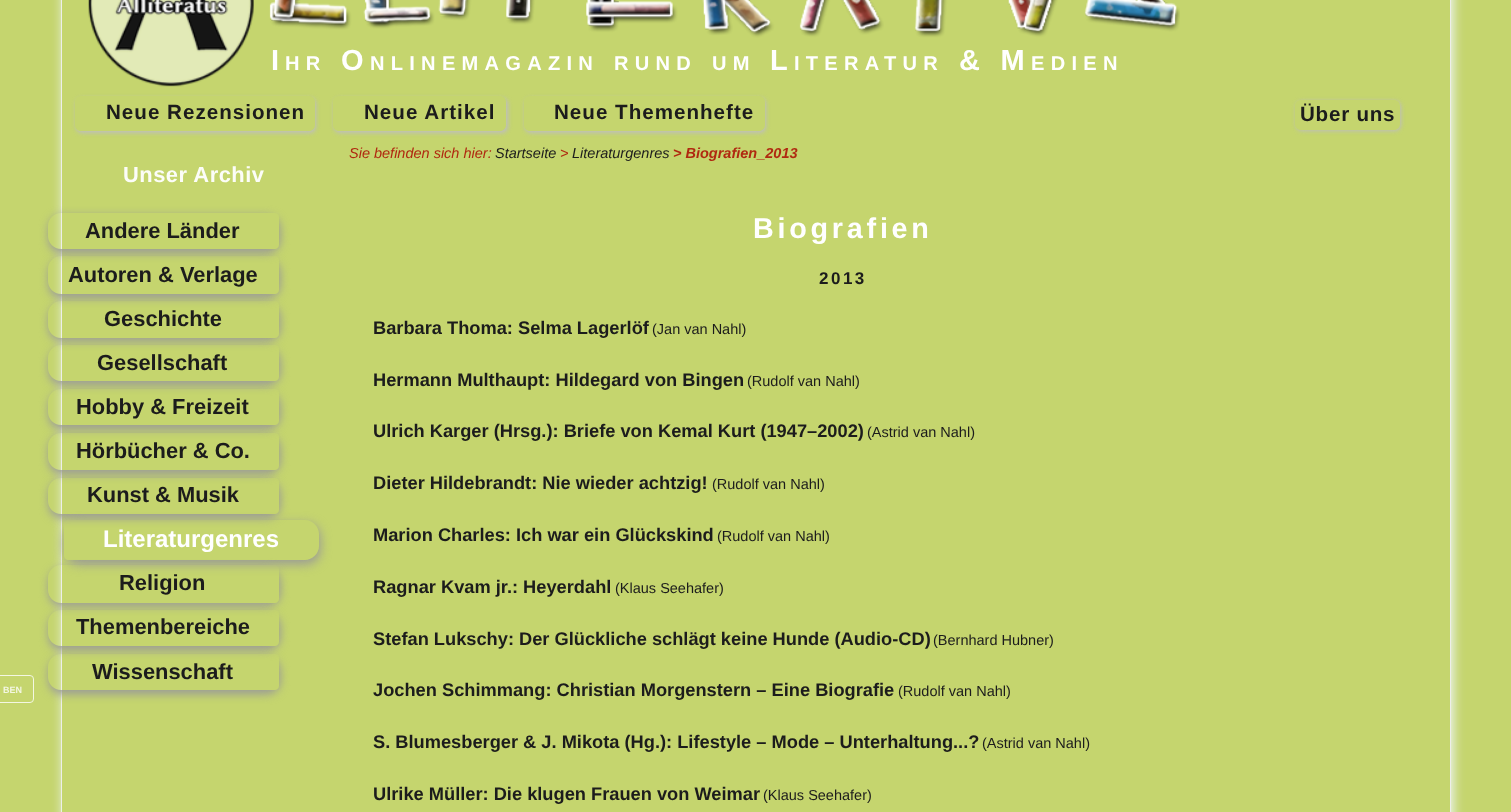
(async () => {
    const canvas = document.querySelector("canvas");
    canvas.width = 1511;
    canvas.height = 812;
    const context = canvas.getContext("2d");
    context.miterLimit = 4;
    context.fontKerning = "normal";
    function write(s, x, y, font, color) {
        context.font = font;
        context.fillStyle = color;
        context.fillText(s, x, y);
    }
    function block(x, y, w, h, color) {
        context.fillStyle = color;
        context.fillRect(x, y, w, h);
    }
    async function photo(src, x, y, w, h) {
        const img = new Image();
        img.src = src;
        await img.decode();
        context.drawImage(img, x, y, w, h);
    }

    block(0, 0, 1511, 812, "rgb(197, 213, 110)");
    context.save();
    context.beginPath();
    context.moveTo(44, 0);
    context.lineTo(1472, 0);
    context.lineTo(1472, 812);
    context.lineTo(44, 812);
    context.closePath();
    context.moveTo(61, -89);
    context.lineTo(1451, -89);
    context.lineTo(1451, 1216);
    context.lineTo(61, 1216);
    context.closePath();
    context.clip("evenodd");
    context.fillStyle = "rgb(239, 248, 251)";
    context.filter = "blur(6px)";
    context.beginPath();
    context.rect(63, -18, 1390, 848);
    context.fill();
    context.filter = "none";
    context.restore();
    context.strokeStyle = "rgb(237, 238, 234)";
    context.strokeRect(61.5, -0.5, 1389, 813);
    await photo("media/1.png", 88, 0, 1092, 87);
    context.letterSpacing = "6.25px";
    write("I", 271, 70, "bold 29px Liberation Sans", "rgb(255, 255, 255)");
    write("HR", 285, 70, "bold 20.1px Liberation Sans", "rgb(255, 255, 255)");
    write("O", 341, 70, "bold 29px Liberation Sans", "rgb(255, 255, 255)");
    write("NLINEMAGAZIN", 370, 70, "bold 20.1px Liberation Sans", "rgb(255, 255, 255)");
    write("RUND", 614, 70, "bold 20.1px Liberation Sans", "rgb(255, 255, 255)");
    write("UM", 712, 70, "bold 20.1px Liberation Sans", "rgb(255, 255, 255)");
    write("L", 770, 70, "bold 29px Liberation Sans", "rgb(255, 255, 255)");
    write("ITERATUR", 794, 70, "bold 20.1px Liberation Sans", "rgb(255, 255, 255)");
    write("& M", 959, 70, "bold 29px Liberation Sans", "rgb(255, 255, 255)");
    write("EDIEN", 1031, 70, "bold 20.1px Liberation Sans", "rgb(255, 255, 255)");
    context.save();
    context.beginPath();
    context.moveTo(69, 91);
    context.lineTo(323, 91);
    context.lineTo(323, 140);
    context.lineTo(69, 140);
    context.closePath();
    context.moveTo(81, 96);
    context.lineTo(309, 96);
    context.bezierCurveTo(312.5, 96, 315, 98.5, 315, 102);
    context.lineTo(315, 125);
    context.bezierCurveTo(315, 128.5, 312.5, 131, 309, 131);
    context.lineTo(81, 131);
    context.bezierCurveTo(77.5, 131, 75, 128.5, 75, 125);
    context.lineTo(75, 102);
    context.bezierCurveTo(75, 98.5, 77.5, 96, 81, 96);
    context.closePath();
    context.clip("evenodd");
    context.fillStyle = "rgb(189, 189, 189)";
    context.filter = "blur(2px)";
    context.beginPath();
    context.roundRect(76, 98, 240, 35, 6);
    context.fill();
    context.filter = "none";
    context.restore();
    context.letterSpacing = "1px";
    write("Neue Rezensionen", 106, 119, "bold 20.6px Liberation Sans", "rgb(28, 28, 28)");
    context.save();
    context.beginPath();
    context.moveTo(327, 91);
    context.lineTo(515, 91);
    context.lineTo(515, 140);
    context.lineTo(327, 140);
    context.closePath();
    context.moveTo(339, 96);
    context.lineTo(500, 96);
    context.bezierCurveTo(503.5, 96, 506, 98.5, 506, 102);
    context.lineTo(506, 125);
    context.bezierCurveTo(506, 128.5, 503.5, 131, 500, 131);
    context.lineTo(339, 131);
    context.bezierCurveTo(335.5, 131, 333, 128.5, 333, 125);
    context.lineTo(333, 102);
    context.bezierCurveTo(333, 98.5, 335.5, 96, 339, 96);
    context.closePath();
    context.clip("evenodd");
    context.fillStyle = "rgb(189, 189, 189)";
    context.filter = "blur(2px)";
    context.beginPath();
    context.roundRect(334, 98, 174, 35, 6);
    context.fill();
    context.filter = "none";
    context.restore();
    write("Neue Artikel", 364, 119, "bold 20.6px Liberation Sans", "rgb(28, 28, 28)");
    context.save();
    context.beginPath();
    context.moveTo(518, 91);
    context.lineTo(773, 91);
    context.lineTo(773, 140);
    context.lineTo(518, 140);
    context.closePath();
    context.moveTo(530, 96);
    context.lineTo(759, 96);
    context.bezierCurveTo(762.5, 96, 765, 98.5, 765, 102);
    context.lineTo(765, 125);
    context.bezierCurveTo(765, 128.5, 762.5, 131, 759, 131);
    context.lineTo(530, 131);
    context.bezierCurveTo(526.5, 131, 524, 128.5, 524, 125);
    context.lineTo(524, 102);
    context.bezierCurveTo(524, 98.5, 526.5, 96, 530, 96);
    context.closePath();
    context.clip("evenodd");
    context.fillStyle = "rgb(189, 189, 189)";
    context.filter = "blur(2px)";
    context.beginPath();
    context.roundRect(525, 98, 241, 35, 6);
    context.fill();
    context.filter = "none";
    context.restore();
    write("Neue Themenhefte", 554, 119, "bold 20.6px Liberation Sans", "rgb(28, 28, 28)");
    context.save();
    context.beginPath();
    context.moveTo(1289, 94);
    context.lineTo(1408, 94);
    context.lineTo(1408, 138);
    context.lineTo(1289, 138);
    context.closePath();
    context.moveTo(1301, 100);
    context.lineTo(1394, 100);
    context.bezierCurveTo(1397.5, 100, 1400, 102.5, 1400, 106);
    context.lineTo(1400, 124);
    context.bezierCurveTo(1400, 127.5, 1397.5, 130, 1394, 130);
    context.lineTo(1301, 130);
    context.bezierCurveTo(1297.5, 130, 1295, 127.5, 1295, 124);
    context.lineTo(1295, 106);
    context.bezierCurveTo(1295, 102.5, 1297.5, 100, 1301, 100);
    context.closePath();
    context.clip("evenodd");
    context.fillStyle = "rgb(189, 189, 189)";
    context.filter = "blur(2px)";
    context.beginPath();
    context.roundRect(1296, 101, 105, 30, 6);
    context.fill();
    context.filter = "none";
    context.restore();
    context.letterSpacing = "0.75px";
    write("Über uns", 1300, 121, "bold 20.6px Liberation Sans", "rgb(28, 28, 28)");
    context.letterSpacing = "0.5px";
    write("Unser Archiv", 123, 182, "bold 21.9px Liberation Sans", "rgb(252, 253, 248)");
    context.letterSpacing = "0px";
    write("Sie befinden sich hier:", 349, 158, "italic 14.5px Liberation Sans", "rgb(176, 41, 16)");
    write("Startseite", 495, 158, "italic 14.5px Liberation Sans", "rgb(28, 28, 28)");
    write(">", 560, 158, "italic 14.5px Liberation Sans", "rgb(176, 41, 16)");
    write("Literaturgenres", 572, 158, "italic 14.5px Liberation Sans", "rgb(28, 28, 28)");
    write("> Biografien_2013", 673, 158, "italic bold 14.5px Liberation Sans", "rgb(176, 41, 16)");
    context.letterSpacing = "3.75px";
    write("Biografien", 753, 238, "bold 28.75px Liberation Sans", "rgb(255, 255, 255)");
    context.letterSpacing = "2.5px";
    write("2013", 819, 284, "bold 17px Liberation Sans", "rgb(28, 28, 28)");
    context.letterSpacing = "0px";
    write("Barbara Thoma: Selma Lagerlöf", 373, 334, "bold 18.25px Liberation Sans", "rgb(28, 28, 28)");
    write("(Jan van Nahl)", 652, 334, "14.5px Liberation Sans", "rgb(28, 28, 28)");
    write("Hermann Multhaupt: Hildegard von Bingen", 373, 386, "bold 18.25px Liberation Sans", "rgb(28, 28, 28)");
    write("(Rudolf van Nahl)", 747, 386, "14.5px Liberation Sans", "rgb(28, 28, 28)");
    write("Ulrich Karger (Hrsg.): Briefe von Kemal Kurt (1947–2002)", 373, 437, "bold 18.25px Liberation Sans", "rgb(28, 28, 28)");
    write("(Astrid van Nahl)", 867, 437, "14.5px Liberation Sans", "rgb(28, 28, 28)");
    write("Dieter Hildebrandt: Nie wieder achtzig!", 373, 489, "bold 18.25px Liberation Sans", "rgb(28, 28, 28)");
    write("(Rudolf van Nahl)", 712, 489, "14.5px Liberation Sans", "rgb(28, 28, 28)");
    write("Marion Charles: Ich war ein Glückskind", 373, 541, "bold 18.25px Liberation Sans", "rgb(28, 28, 28)");
    write("(Rudolf van Nahl)", 717, 541, "14.5px Liberation Sans", "rgb(28, 28, 28)");
    write("Ragnar Kvam jr.: Heyerdahl", 373, 593, "bold 18.25px Liberation Sans", "rgb(28, 28, 28)");
    write("(Klaus Seehafer)", 615, 593, "14.5px Liberation Sans", "rgb(28, 28, 28)");
    write("Stefan Lukschy: Der Glückliche schlägt keine Hunde (Audio-CD)", 373, 645, "bold 18.25px Liberation Sans", "rgb(28, 28, 28)");
    write("(Bernhard Hubner)", 933, 645, "14.5px Liberation Sans", "rgb(28, 28, 28)");
    write("Jochen Schimmang: Christian Morgenstern – Eine Biografie", 373, 696, "bold 18.25px Liberation Sans", "rgb(28, 28, 28)");
    write("(Rudolf van Nahl)", 898, 696, "14.5px Liberation Sans", "rgb(28, 28, 28)");
    write("S. Blumesberger & J. Mikota (Hg.): Lifestyle – Mode – Unterhaltung...?", 373, 748, "bold 18.25px Liberation Sans", "rgb(28, 28, 28)");
    write("(Astrid van Nahl)", 982, 748, "14.5px Liberation Sans", "rgb(28, 28, 28)");
    write("Ulrike Müller: Die klugen Frauen von Weimar", 373, 800, "bold 18.25px Liberation Sans", "rgb(28, 28, 28)");
    write("(Klaus Seehafer)", 763, 800, "14.5px Liberation Sans", "rgb(28, 28, 28)");
    context.save();
    context.beginPath();
    context.moveTo(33, 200);
    context.lineTo(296, 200);
    context.lineTo(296, 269);
    context.lineTo(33, 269);
    context.closePath();
    context.moveTo(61, 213);
    context.lineTo(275, 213);
    context.bezierCurveTo(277, 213, 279, 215, 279, 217);
    context.lineTo(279, 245);
    context.bezierCurveTo(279, 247, 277, 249, 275, 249);
    context.lineTo(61, 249);
    context.bezierCurveTo(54, 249, 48, 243, 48, 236);
    context.lineTo(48, 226);
    context.bezierCurveTo(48, 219, 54, 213, 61, 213);
    context.closePath();
    context.clip("evenodd");
    context.fillStyle = "rgb(152, 152, 152)";
    context.filter = "blur(5px)";
    context.beginPath();
    context.roundRect(49, 216, 231, 37, 13);
    context.fill();
    context.filter = "none";
    context.restore();
    write("Andere Länder", 85, 238, "bold 21.9px Liberation Sans", "rgb(28, 28, 28)");
    context.save();
    context.beginPath();
    context.moveTo(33, 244);
    context.lineTo(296, 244);
    context.lineTo(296, 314);
    context.lineTo(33, 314);
    context.closePath();
    context.moveTo(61, 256);
    context.lineTo(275, 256);
    context.bezierCurveTo(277, 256, 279, 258, 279, 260);
    context.lineTo(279, 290);
    context.bezierCurveTo(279, 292, 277, 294, 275, 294);
    context.lineTo(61, 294);
    context.bezierCurveTo(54, 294, 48, 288, 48, 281);
    context.lineTo(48, 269);
    context.bezierCurveTo(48, 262, 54, 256, 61, 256);
    context.closePath();
    context.clip("evenodd");
    context.fillStyle = "rgb(152, 152, 152)";
    context.filter = "blur(5px)";
    context.beginPath();
    context.roundRect(49, 260, 231, 38, 13);
    context.fill();
    context.filter = "none";
    context.restore();
    write("Autoren & Verlage", 68, 282, "bold 21.9px Liberation Sans", "rgb(28, 28, 28)");
    context.save();
    context.beginPath();
    context.moveTo(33, 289);
    context.lineTo(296, 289);
    context.lineTo(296, 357);
    context.lineTo(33, 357);
    context.closePath();
    context.moveTo(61, 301);
    context.lineTo(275, 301);
    context.bezierCurveTo(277, 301, 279, 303, 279, 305);
    context.lineTo(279, 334);
    context.bezierCurveTo(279, 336, 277, 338, 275, 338);
    context.lineTo(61, 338);
    context.bezierCurveTo(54, 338, 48, 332, 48, 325);
    context.lineTo(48, 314);
    context.bezierCurveTo(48, 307, 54, 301, 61, 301);
    context.closePath();
    context.clip("evenodd");
    context.fillStyle = "rgb(152, 152, 152)";
    context.filter = "blur(5px)";
    context.beginPath();
    context.roundRect(49, 305, 231, 36, 13);
    context.fill();
    context.filter = "none";
    context.restore();
    write("Geschichte", 104, 326, "bold 21.9px Liberation Sans", "rgb(28, 28, 28)");
    context.save();
    context.beginPath();
    context.moveTo(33, 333);
    context.lineTo(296, 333);
    context.lineTo(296, 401);
    context.lineTo(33, 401);
    context.closePath();
    context.moveTo(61, 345);
    context.lineTo(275, 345);
    context.bezierCurveTo(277, 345, 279, 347, 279, 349);
    context.lineTo(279, 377);
    context.bezierCurveTo(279, 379, 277, 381, 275, 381);
    context.lineTo(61, 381);
    context.bezierCurveTo(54, 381, 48, 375, 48, 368);
    context.lineTo(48, 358);
    context.bezierCurveTo(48, 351, 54, 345, 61, 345);
    context.closePath();
    context.clip("evenodd");
    context.fillStyle = "rgb(152, 152, 152)";
    context.filter = "blur(5px)";
    context.beginPath();
    context.roundRect(49, 349, 231, 36, 13);
    context.fill();
    context.filter = "none";
    context.restore();
    write("Gesellschaft", 97, 370, "bold 21.9px Liberation Sans", "rgb(28, 28, 28)");
    context.save();
    context.beginPath();
    context.moveTo(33, 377);
    context.lineTo(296, 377);
    context.lineTo(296, 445);
    context.lineTo(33, 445);
    context.closePath();
    context.moveTo(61, 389);
    context.lineTo(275, 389);
    context.bezierCurveTo(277, 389, 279, 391, 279, 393);
    context.lineTo(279, 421);
    context.bezierCurveTo(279, 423, 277, 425, 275, 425);
    context.lineTo(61, 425);
    context.bezierCurveTo(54, 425, 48, 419, 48, 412);
    context.lineTo(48, 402);
    context.bezierCurveTo(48, 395, 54, 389, 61, 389);
    context.closePath();
    context.clip("evenodd");
    context.fillStyle = "rgb(152, 152, 152)";
    context.filter = "blur(5px)";
    context.beginPath();
    context.roundRect(49, 393, 231, 36, 13);
    context.fill();
    context.filter = "none";
    context.restore();
    write("Hobby & Freizeit", 76, 414, "bold 21.9px Liberation Sans", "rgb(28, 28, 28)");
    context.save();
    context.beginPath();
    context.moveTo(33, 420);
    context.lineTo(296, 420);
    context.lineTo(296, 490);
    context.lineTo(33, 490);
    context.closePath();
    context.moveTo(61, 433);
    context.lineTo(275, 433);
    context.bezierCurveTo(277, 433, 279, 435, 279, 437);
    context.lineTo(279, 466);
    context.bezierCurveTo(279, 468, 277, 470, 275, 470);
    context.lineTo(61, 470);
    context.bezierCurveTo(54, 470, 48, 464, 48, 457);
    context.lineTo(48, 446);
    context.bezierCurveTo(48, 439, 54, 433, 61, 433);
    context.closePath();
    context.clip("evenodd");
    context.fillStyle = "rgb(152, 152, 152)";
    context.filter = "blur(5px)";
    context.beginPath();
    context.roundRect(49, 436, 231, 38, 13);
    context.fill();
    context.filter = "none";
    context.restore();
    write("Hörbücher & Co.", 76, 458, "bold 21.9px Liberation Sans", "rgb(28, 28, 28)");
    context.save();
    context.beginPath();
    context.moveTo(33, 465);
    context.lineTo(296, 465);
    context.lineTo(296, 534);
    context.lineTo(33, 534);
    context.closePath();
    context.moveTo(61, 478);
    context.lineTo(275, 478);
    context.bezierCurveTo(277, 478, 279, 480, 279, 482);
    context.lineTo(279, 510);
    context.bezierCurveTo(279, 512, 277, 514, 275, 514);
    context.lineTo(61, 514);
    context.bezierCurveTo(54, 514, 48, 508, 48, 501);
    context.lineTo(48, 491);
    context.bezierCurveTo(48, 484, 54, 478, 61, 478);
    context.closePath();
    context.clip("evenodd");
    context.fillStyle = "rgb(152, 152, 152)";
    context.filter = "blur(5px)";
    context.beginPath();
    context.roundRect(49, 481, 231, 37, 13);
    context.fill();
    context.filter = "none";
    context.restore();
    write("Kunst & Musik", 87, 502, "bold 21.9px Liberation Sans", "rgb(28, 28, 28)");
    context.save();
    context.beginPath();
    context.moveTo(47, 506);
    context.lineTo(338, 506);
    context.lineTo(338, 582);
    context.lineTo(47, 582);
    context.closePath();
    context.moveTo(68, 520);
    context.lineTo(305, 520);
    context.bezierCurveTo(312.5, 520, 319, 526.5, 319, 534);
    context.lineTo(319, 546);
    context.bezierCurveTo(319, 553.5, 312.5, 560, 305, 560);
    context.lineTo(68, 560);
    context.bezierCurveTo(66, 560, 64, 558, 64, 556);
    context.lineTo(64, 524);
    context.bezierCurveTo(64, 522, 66, 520, 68, 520);
    context.closePath();
    context.clip("evenodd");
    context.fillStyle = "rgb(152, 152, 152)";
    context.filter = "blur(5.5px)";
    context.beginPath();
    context.roundRect(65, 524, 255, 40, 14);
    context.fill();
    context.filter = "none";
    context.restore();
    write("Literaturgenres", 103, 547, "bold 24px Liberation Sans", "rgb(255, 255, 255)");
    context.save();
    context.beginPath();
    context.moveTo(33, 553);
    context.lineTo(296, 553);
    context.lineTo(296, 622);
    context.lineTo(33, 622);
    context.closePath();
    context.moveTo(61, 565);
    context.lineTo(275, 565);
    context.bezierCurveTo(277, 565, 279, 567, 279, 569);
    context.lineTo(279, 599);
    context.bezierCurveTo(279, 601, 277, 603, 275, 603);
    context.lineTo(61, 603);
    context.bezierCurveTo(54, 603, 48, 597, 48, 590);
    context.lineTo(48, 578);
    context.bezierCurveTo(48, 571, 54, 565, 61, 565);
    context.closePath();
    context.clip("evenodd");
    context.fillStyle = "rgb(152, 152, 152)";
    context.filter = "blur(5px)";
    context.beginPath();
    context.roundRect(49, 569, 231, 37, 13);
    context.fill();
    context.filter = "none";
    context.restore();
    write("Religion", 119, 590, "bold 21.9px Liberation Sans", "rgb(28, 28, 28)");
    context.save();
    context.beginPath();
    context.moveTo(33, 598);
    context.lineTo(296, 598);
    context.lineTo(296, 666);
    context.lineTo(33, 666);
    context.closePath();
    context.moveTo(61, 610);
    context.lineTo(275, 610);
    context.bezierCurveTo(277, 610, 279, 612, 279, 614);
    context.lineTo(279, 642);
    context.bezierCurveTo(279, 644, 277, 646, 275, 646);
    context.lineTo(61, 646);
    context.bezierCurveTo(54, 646, 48, 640, 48, 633);
    context.lineTo(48, 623);
    context.bezierCurveTo(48, 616, 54, 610, 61, 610);
    context.closePath();
    context.clip("evenodd");
    context.fillStyle = "rgb(152, 152, 152)";
    context.filter = "blur(5px)";
    context.beginPath();
    context.roundRect(49, 614, 231, 36, 13);
    context.fill();
    context.filter = "none";
    context.restore();
    write("Themenbereiche", 76, 634, "bold 21.9px Liberation Sans", "rgb(28, 28, 28)");
    context.beginPath();
    context.roundRect(-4.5, 675.5, 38, 27, 3.5);
    context.strokeStyle = "rgb(243, 247, 226)";
    context.stroke();
    context.save();
    context.beginPath();
    context.moveTo(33, 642);
    context.lineTo(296, 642);
    context.lineTo(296, 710);
    context.lineTo(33, 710);
    context.closePath();
    context.moveTo(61, 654);
    context.lineTo(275, 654);
    context.bezierCurveTo(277, 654, 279, 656, 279, 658);
    context.lineTo(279, 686);
    context.bezierCurveTo(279, 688, 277, 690, 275, 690);
    context.lineTo(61, 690);
    context.bezierCurveTo(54, 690, 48, 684, 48, 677);
    context.lineTo(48, 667);
    context.bezierCurveTo(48, 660, 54, 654, 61, 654);
    context.closePath();
    context.clip("evenodd");
    context.fillStyle = "rgb(152, 152, 152)";
    context.filter = "blur(5px)";
    context.beginPath();
    context.roundRect(49, 658, 231, 36, 13);
    context.fill();
    context.filter = "none";
    context.restore();
    write("Wissenschaft", 92, 679, "bold 21.9px Liberation Sans", "rgb(28, 28, 28)");
    write("BEN", 3, 693, "bold 9px Liberation Sans", "rgb(243, 247, 226)");
})();
